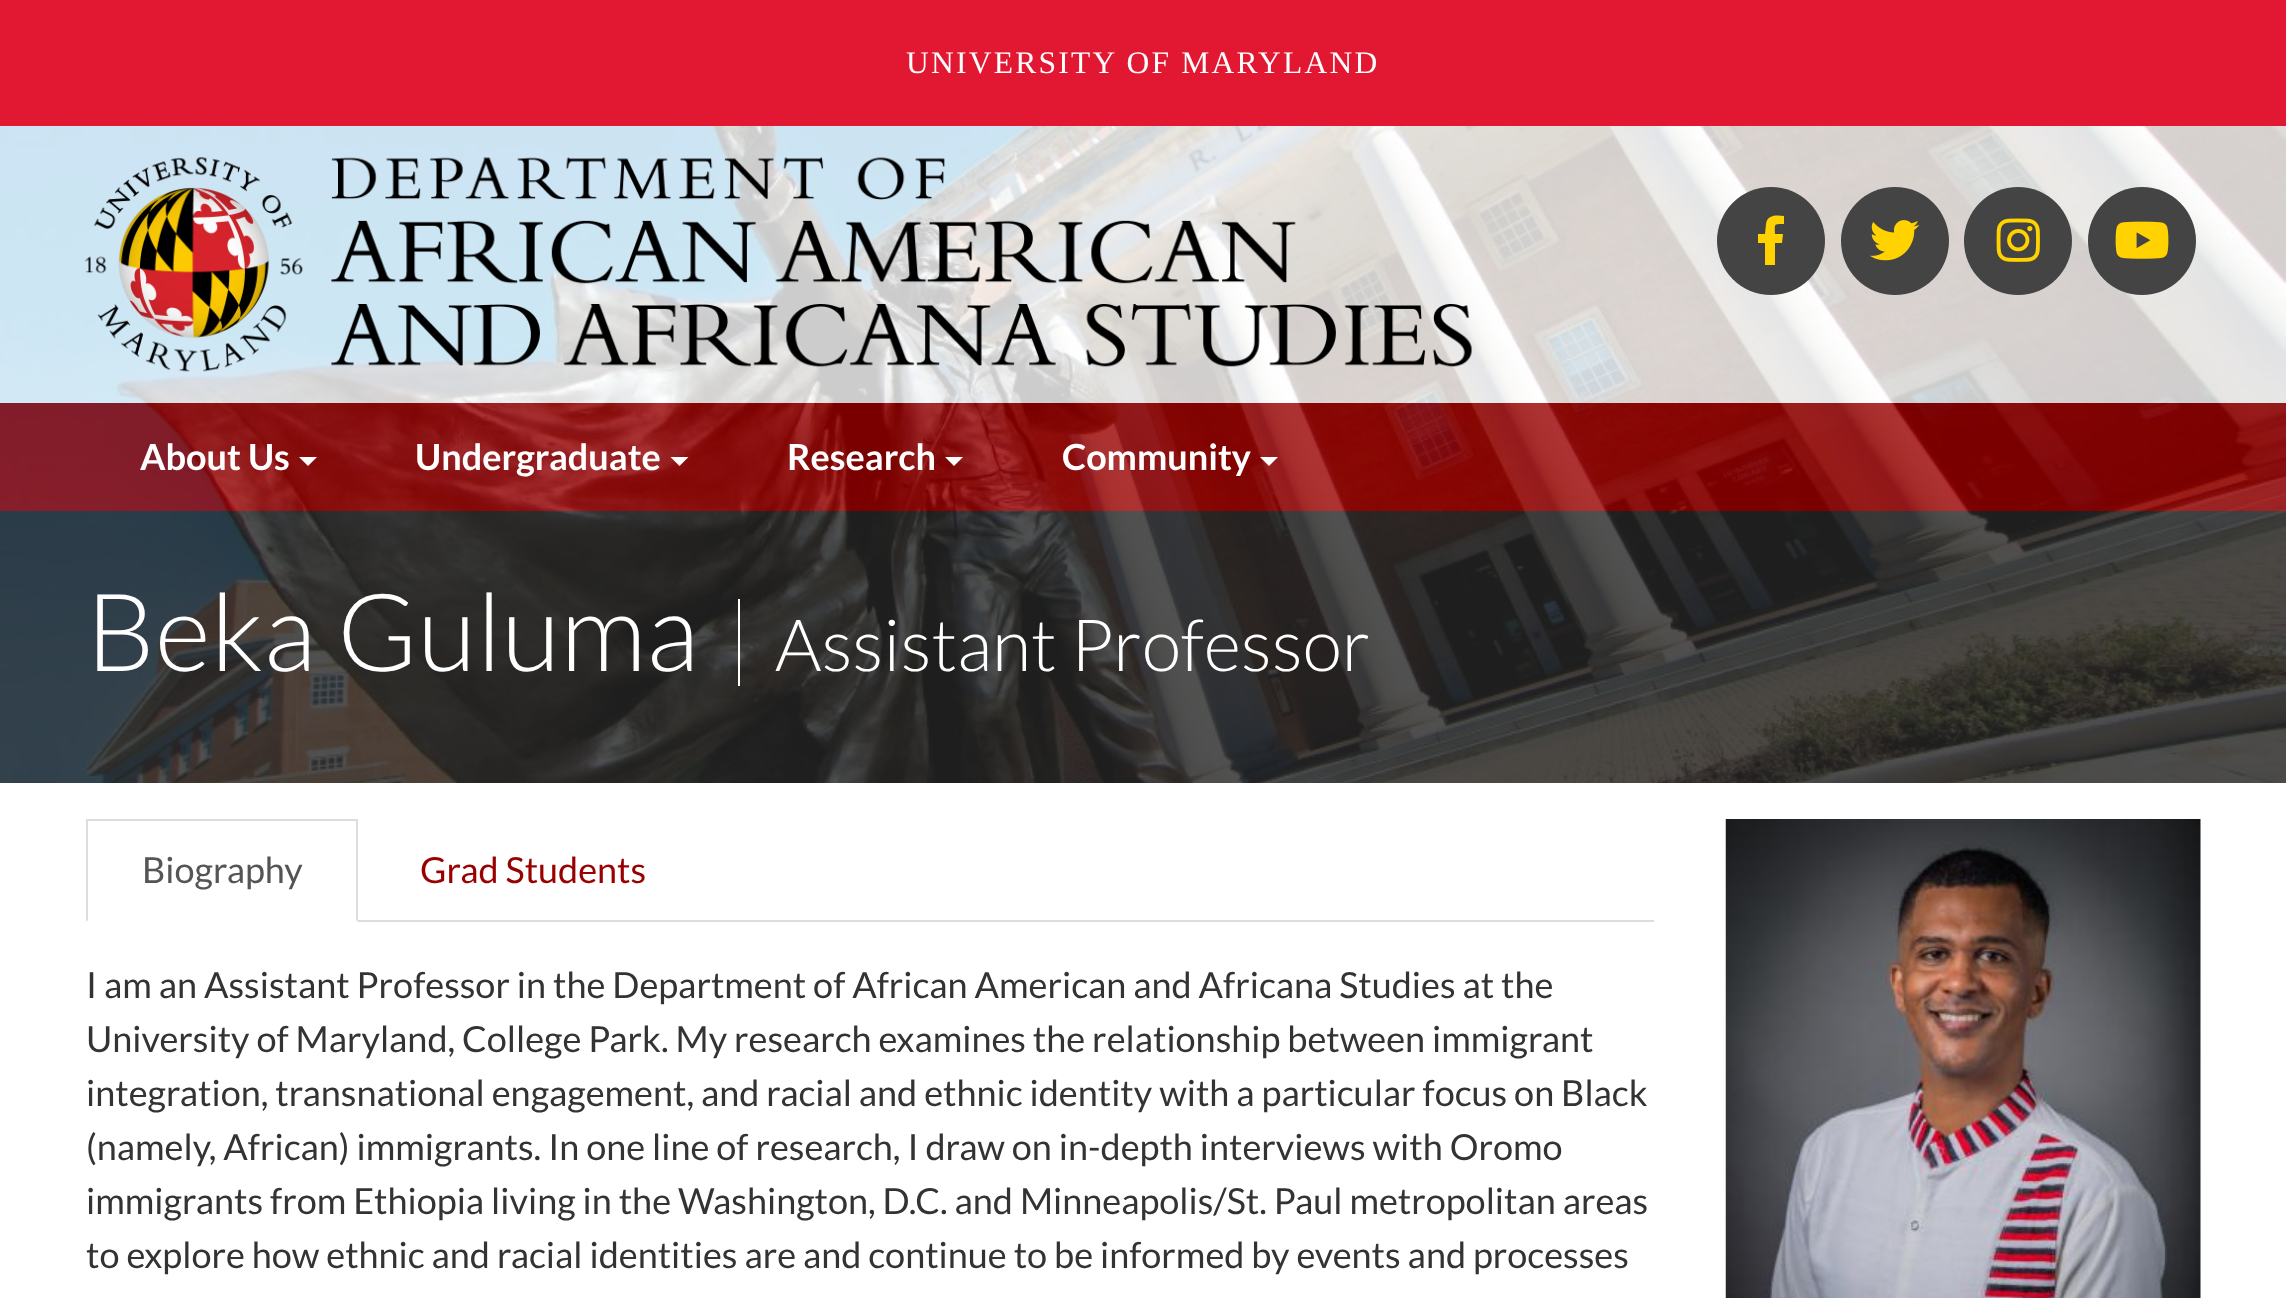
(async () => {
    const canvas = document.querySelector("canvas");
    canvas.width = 2286;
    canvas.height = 1298;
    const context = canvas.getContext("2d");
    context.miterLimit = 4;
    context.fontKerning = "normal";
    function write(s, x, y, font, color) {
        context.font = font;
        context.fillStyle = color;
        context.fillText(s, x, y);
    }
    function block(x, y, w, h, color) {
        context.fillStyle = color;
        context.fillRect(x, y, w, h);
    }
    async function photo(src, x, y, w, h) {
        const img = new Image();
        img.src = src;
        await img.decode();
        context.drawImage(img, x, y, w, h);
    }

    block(0, 0, 2286, 1298, "rgb(255, 255, 255)");
    block(0, 0, 2286, 126, "rgb(226, 24, 51)");
    context.letterSpacing = "2.25px";
    write("UNIVERSITY OF MARYLAND", 906, 73, "31.5px Liberation Serif", "rgb(255, 255, 255)");
    await photo("media/1.png", 0, 126, 2286, 657);
    block(0, 126, 2286, 277, "rgba(255, 255, 255, 0.8)");
    await photo("media/2.png", 85, 157, 1387, 215);
    context.fillStyle = "rgb(68, 68, 68)";
    context.beginPath();
    context.arc(1771, 241, 54, 0, Math.PI * 2);
    context.fill();
    context.fillStyle = "rgb(255, 210, 0)";
    context.beginPath();
    context.moveTo(1765, 265);
    context.lineTo(1765, 243);
    context.lineTo(1758, 243);
    context.lineTo(1758, 234);
    context.lineTo(1765, 234);
    context.lineTo(1766, 224);
    context.bezierCurveTo(1767, 215, 1776, 215, 1784, 216);
    context.lineTo(1784, 224);
    context.bezierCurveTo(1773, 224, 1775, 224, 1775, 234);
    context.lineTo(1783, 234);
    context.lineTo(1782, 243);
    context.lineTo(1775, 243);
    context.lineTo(1775, 265);
    context.closePath();
    context.fill();
    context.fillStyle = "rgb(68, 68, 68)";
    context.beginPath();
    context.arc(1895, 241, 54, 0, Math.PI * 2);
    context.fill();
    await photo("media/3.png", 1869, 220, 51, 41);
    context.beginPath();
    context.arc(2018, 241, 54, 0, Math.PI * 2);
    context.fill();
    await photo("media/4.png", 1996, 218, 44, 44);
    context.beginPath();
    context.arc(2142, 241, 54, 0, Math.PI * 2);
    context.fill();
    await photo("media/5.png", 2115, 221, 54, 38);
    block(0, 403, 2286, 108, "rgba(153, 0, 0, 0.8)");
    context.letterSpacing = "0px";
    write("About Us", 140, 470, "bold 36px Lato", "rgb(255, 255, 255)");
    context.beginPath();
    context.moveTo(299, 457);
    context.lineTo(317, 457);
    context.lineTo(308, 466);
    context.closePath();
    context.fill();
    write("Undergraduate", 415, 470, "bold 36px Lato", "rgb(255, 255, 255)");
    context.beginPath();
    context.moveTo(670.5, 457);
    context.lineTo(688.5, 457);
    context.lineTo(679.5, 466);
    context.closePath();
    context.fill();
    write("Research", 787, 470, "bold 36px Lato", "rgb(255, 255, 255)");
    context.beginPath();
    context.moveTo(945, 457);
    context.lineTo(963, 457);
    context.lineTo(954, 466);
    context.closePath();
    context.fill();
    write("Community", 1062, 470, "bold 36px Lato", "rgb(255, 255, 255)");
    context.beginPath();
    context.moveTo(1260, 457);
    context.lineTo(1278, 457);
    context.lineTo(1269, 466);
    context.closePath();
    context.fill();
    block(0, 511, 2286, 272, "rgba(37, 37, 37, 0.8)");
    write("Beka Guluma", 86, 671, "300 108px Lato", "rgb(255, 255, 255)");
    write("Assistant Professor", 775, 671, "300 72px Lato", "rgb(255, 255, 255)");
    block(738, 599, 2, 87, "rgb(255, 255, 255)");
    block(358, 920, 1296, 2, "rgb(221, 221, 221)");
    block(86, 819, 272, 2, "rgb(221, 221, 221)");
    context.beginPath();
    context.moveTo(358, 819);
    context.lineTo(358, 922);
    context.lineTo(356, 920);
    context.lineTo(356, 821);
    context.closePath();
    context.fill();
    context.beginPath();
    context.moveTo(86, 922);
    context.lineTo(86, 819);
    context.lineTo(88, 821);
    context.lineTo(88, 920);
    context.closePath();
    context.fill();
    write("Biography", 142, 883, "36px Lato", "rgb(85, 85, 85)");
    write("Grad Students", 420, 883, "36px Lato", "rgb(153, 0, 0)");
    write("I am an Assistant Professor in the Department of African American and Africana Studies at the", 86, 998, "36px Lato", "rgb(51, 51, 51)");
    write("University of Maryland, College Park. My research examines the relationship between immigrant", 86, 1052, "36px Lato", "rgb(51, 51, 51)");
    write("integration, transnational engagement, and racial and ethnic identity with a particular focus on Black", 86, 1106, "36px Lato", "rgb(51, 51, 51)");
    write("(namely, African) immigrants. In one line of research, I draw on in-depth interviews with Oromo", 86, 1160, "36px Lato", "rgb(51, 51, 51)");
    write("immigrants from Ethiopia living in the Washington, D.C. and Minneapolis/St. Paul metropolitan areas", 86, 1214, "36px Lato", "rgb(51, 51, 51)");
    write("to explore how ethnic and racial identities are and continue to be informed by events and processes", 86, 1268, "36px Lato", "rgb(51, 51, 51)");
    await photo("media/6.png", 1725, 819, 476, 479);
})();
